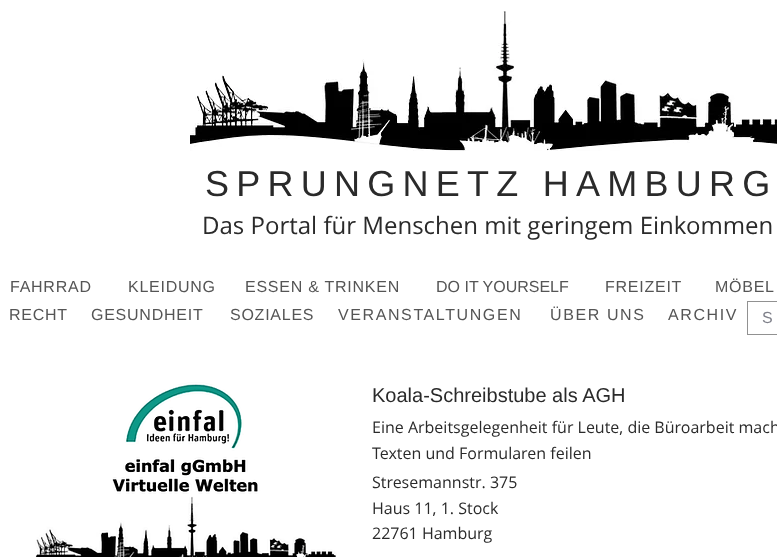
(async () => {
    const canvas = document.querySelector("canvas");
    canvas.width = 777;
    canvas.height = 557;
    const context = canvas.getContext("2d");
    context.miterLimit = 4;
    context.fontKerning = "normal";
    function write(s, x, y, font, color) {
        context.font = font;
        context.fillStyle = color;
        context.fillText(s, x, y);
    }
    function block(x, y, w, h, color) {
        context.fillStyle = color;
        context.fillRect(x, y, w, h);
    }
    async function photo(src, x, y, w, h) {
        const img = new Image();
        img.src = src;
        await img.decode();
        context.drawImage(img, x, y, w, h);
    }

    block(0, 0, 777, 557, "rgb(255, 255, 255)");
    await photo("media/1.png", 190, 11, 587, 140);
    context.letterSpacing = "7.25px";
    write("SPRUNGNETZ HAMBURG", 205, 196, "36px Liberation Sans", "rgb(42, 42, 42)");
    context.letterSpacing = "0px";
    write("Das Portal für Menschen mit geringem Einkommen", 202, 234, "24px Open Sans", "rgb(42, 42, 42)");
    context.letterSpacing = "0.75px";
    write("FAHRRAD", 10, 292, "16px Liberation Sans", "rgb(85, 85, 85)");
    write("KLEIDUNG", 128, 292, "16px Liberation Sans", "rgb(85, 85, 85)");
    write("ESSEN & TRINKEN", 245, 292, "16px Liberation Sans", "rgb(85, 85, 85)");
    context.letterSpacing = "0px";
    write("DO IT YOURSELF", 436, 292, "16px Liberation Sans", "rgb(85, 85, 85)");
    context.letterSpacing = "0.75px";
    write("FREIZEIT", 605, 292, "16px Liberation Sans", "rgb(85, 85, 85)");
    write("MÖBEL", 715, 292, "16px Liberation Sans", "rgb(85, 85, 85)");
    write("RECHT", 9, 320, "16px Liberation Sans", "rgb(85, 85, 85)");
    write("GESUNDHEIT", 91, 320, "16px Liberation Sans", "rgb(85, 85, 85)");
    write("SOZIALES", 230, 320, "16px Liberation Sans", "rgb(85, 85, 85)");
    context.letterSpacing = "1.6px";
    write("VERANSTALTUNGEN", 338, 320, "16px Liberation Sans", "rgb(85, 85, 85)");
    write("ÜBER UNS", 550, 320, "16px Liberation Sans", "rgb(85, 85, 85)");
    write("ARCHIV", 668, 320, "16px Liberation Sans", "rgb(85, 85, 85)");
    context.strokeStyle = "rgb(145, 145, 145)";
    context.strokeRect(747.5, 301.5, 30, 33);
    context.letterSpacing = "0px";
    write("S", 762, 323, "16px Liberation Sans", "rgb(127, 128, 138)");
    await photo("media/2.png", 35, 382, 302, 175);
    write("Koala-Schreibstube als AGH", 372, 402, "20px Liberation Sans", "rgb(42, 42, 42)");
    write("Eine Arbeitsgelegenheit für Leute, die Büroarbeit mach", 372, 433, "16px Open Sans", "rgb(42, 42, 42)");
    write("Texten und Formularen feilen", 372, 459, "16px Open Sans", "rgb(42, 42, 42)");
    write("Stresemannstr. 375", 372, 488, "16px Open Sans", "rgb(42, 42, 42)");
    write("Haus 11, 1. Stock", 372, 514, "16px Open Sans", "rgb(42, 42, 42)");
    write("22761 Hamburg", 372, 539, "16px Open Sans", "rgb(42, 42, 42)");
})();
